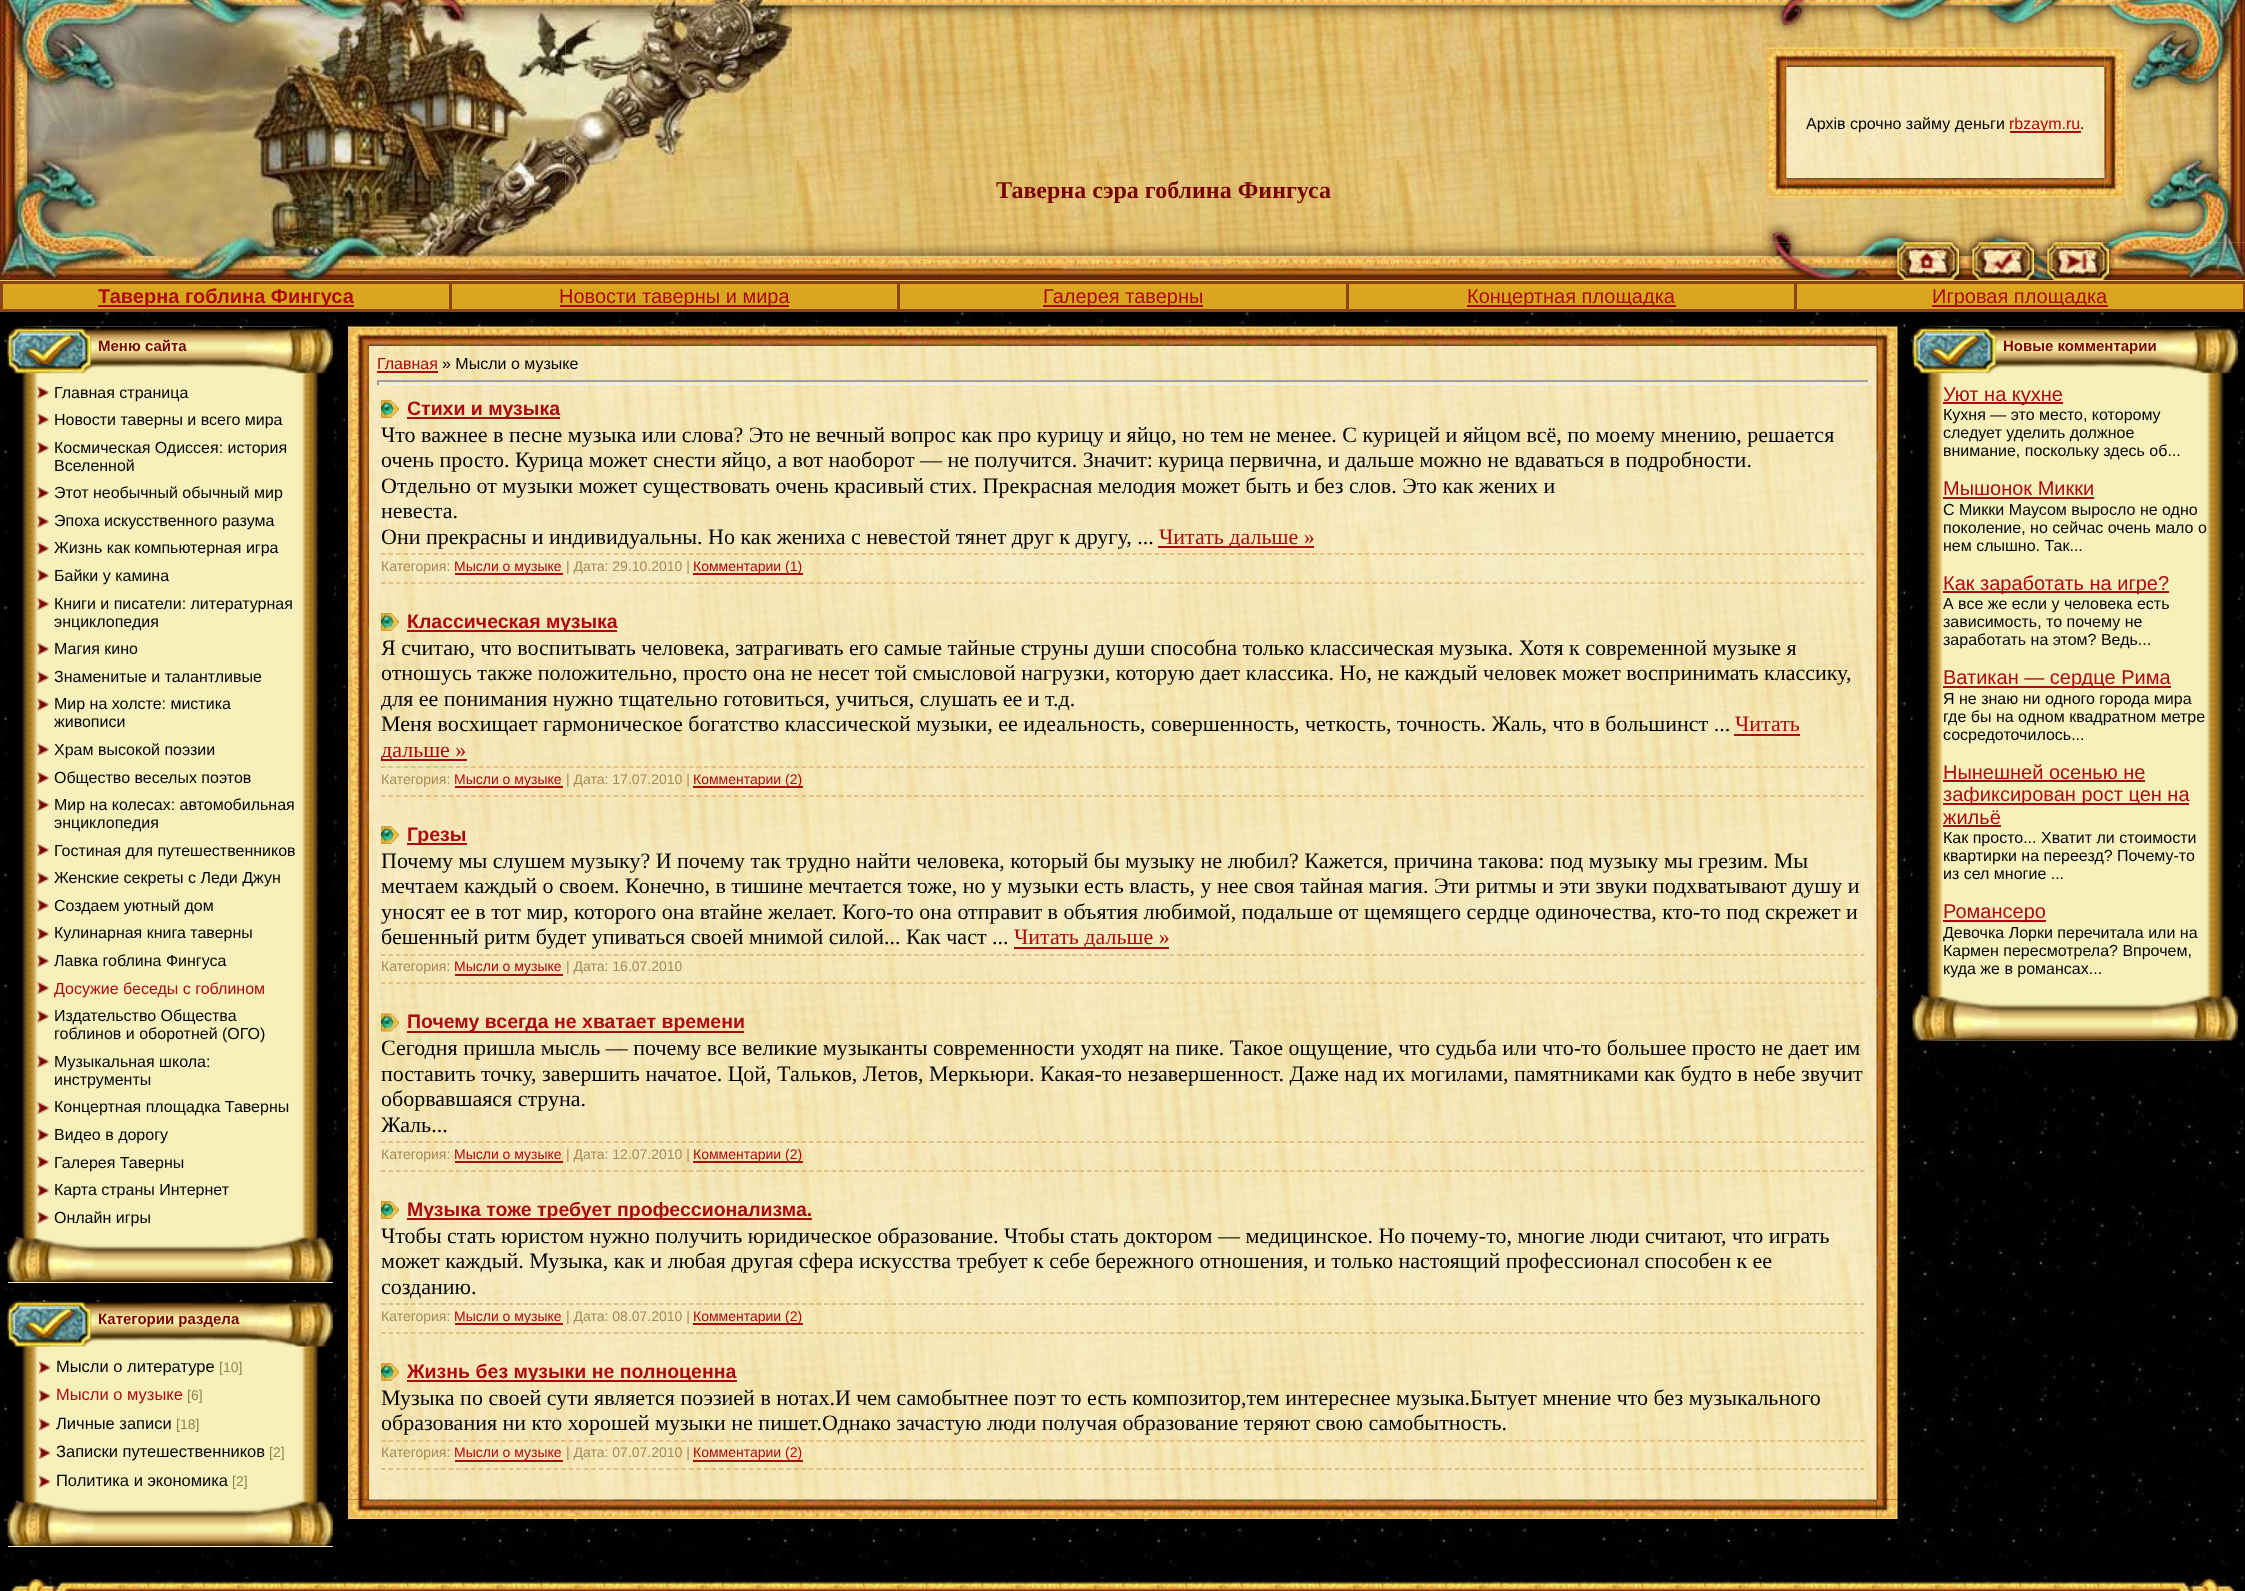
(async () => {
    const canvas = document.querySelector("canvas");
    canvas.width = 2245;
    canvas.height = 1591;
    const context = canvas.getContext("2d");
    context.miterLimit = 4;
    context.fontKerning = "normal";
    function write(s, x, y, font, color) {
        context.font = font;
        context.fillStyle = color;
        context.fillText(s, x, y);
    }
    function block(x, y, w, h, color) {
        context.fillStyle = color;
        context.fillRect(x, y, w, h);
    }
    async function photo(src, x, y, w, h) {
        const img = new Image();
        img.src = src;
        await img.decode();
        context.drawImage(img, x, y, w, h);
    }

    block(0, 0, 2245, 1591, "rgb(255, 255, 255)");
    await photo("media/1.png", 0, 312, 2245, 1267);
    await photo("media/11.png", 565, 0, 1680, 280);
    await photo("media/14.png", 1762, 0, 483, 243);
    await photo("media/3.png", 1786, 47, 319, 20);
    await photo("media/2.png", 1765, 47, 22, 20);
    await photo("media/4.png", 2104, 47, 22, 20);
    await photo("media/5.png", 1765, 67, 22, 111);
    await photo("media/6.png", 1786, 67, 319, 111);
    write("Архів срочно займу деньги", 1806, 129, "16px Liberation Sans", "rgb(0, 0, 0)");
    block(2010, 131, 71, 2, "rgb(173, 9, 14)");
    write("rbzaym.ru", 2009, 129, "16px Liberation Sans", "rgb(173, 9, 14)");
    write(".", 2080, 129, "16px Liberation Sans", "rgb(0, 0, 0)");
    await photo("media/7.png", 2104, 67, 22, 111);
    await photo("media/9.png", 1786, 178, 319, 20);
    await photo("media/8.png", 1765, 178, 22, 20);
    await photo("media/10.png", 2104, 178, 22, 20);
    block(0, 280, 2245, 1, "rgb(226, 194, 117)");
    await photo("media/13.png", 565, 0, 227, 280);
    await photo("media/12.png", 0, 0, 566, 280);
    write("Таверна сэра гоблина Фингуса", 996, 198, "bold 24px Liberation Serif", "rgb(121, 0, 0)");
    await photo("media/15.png", 1762, 242, 136, 38);
    await photo("media/16.png", 1897, 242, 62, 38);
    await photo("media/17.png", 1959, 242, 14, 38);
    await photo("media/18.png", 1972, 242, 62, 38);
    await photo("media/19.png", 2034, 242, 14, 38);
    await photo("media/20.png", 2047, 242, 62, 38);
    await photo("media/21.png", 2109, 242, 136, 38);
    block(3, 284, 2240, 25, "rgb(218, 165, 32)");
    block(1794, 281, 451, 3, "rgb(139, 69, 19)");
    block(2243, 281, 2, 31, "rgb(139, 69, 19)");
    block(1794, 309, 451, 3, "rgb(139, 69, 19)");
    block(1794, 281, 3, 31, "rgb(139, 69, 19)");
    block(1346, 281, 451, 3, "rgb(139, 69, 19)");
    block(1346, 309, 451, 3, "rgb(139, 69, 19)");
    block(1346, 281, 3, 31, "rgb(139, 69, 19)");
    block(897, 281, 452, 3, "rgb(139, 69, 19)");
    block(897, 309, 452, 3, "rgb(139, 69, 19)");
    block(897, 281, 3, 31, "rgb(139, 69, 19)");
    block(449, 281, 451, 3, "rgb(139, 69, 19)");
    block(449, 309, 451, 3, "rgb(139, 69, 19)");
    block(449, 281, 3, 31, "rgb(139, 69, 19)");
    block(0, 281, 452, 3, "rgb(139, 69, 19)");
    block(0, 309, 452, 3, "rgb(139, 69, 19)");
    block(0, 281, 3, 31, "rgb(139, 69, 19)");
    block(98, 305, 256, 2, "rgb(173, 9, 14)");
    write("Таверна гоблина Фингуса", 98, 303, "bold 20px Liberation Sans", "rgb(173, 9, 14)");
    block(560, 305, 229, 2, "rgb(173, 9, 14)");
    write("Новости таверны и мира", 559, 303, "20px Liberation Sans", "rgb(173, 9, 14)");
    block(1043, 305, 160, 2, "rgb(173, 9, 14)");
    write("Галерея таверны", 1043, 303, "20px Liberation Sans", "rgb(173, 9, 14)");
    block(1467, 305, 209, 2, "rgb(173, 9, 14)");
    write("Концертная площадка", 1467, 303, "20px Liberation Sans", "rgb(173, 9, 14)");
    block(1932, 305, 176, 2, "rgb(173, 9, 14)");
    write("Игровая площадка", 1932, 303, "20px Liberation Sans", "rgb(173, 9, 14)");
    block(8, 1282, 325, 1, "rgb(247, 240, 187)");
    await photo("media/22.png", 7, 326, 326, 956);
    await photo("media/23.png", 7, 326, 326, 49);
    write("Меню сайта", 98, 351, "bold 15px Liberation Sans", "rgb(121, 0, 0)");
    await photo("media/24.png", 37, 386, 13, 13);
    write("Главная страница", 54, 398, "16px Liberation Sans", "rgb(0, 0, 0)");
    await photo("media/25.png", 37, 413, 13, 13);
    write("Новости таверны и всего мира", 54, 425, "16px Liberation Sans", "rgb(0, 0, 0)");
    await photo("media/26.png", 37, 442, 13, 12);
    write("Космическая Одиссея: история", 54, 453, "16px Liberation Sans", "rgb(0, 0, 0)");
    write("Вселенной", 54, 471, "16px Liberation Sans", "rgb(0, 0, 0)");
    await photo("media/27.png", 37, 487, 13, 12);
    write("Этот необычный обычный мир", 54, 498, "16px Liberation Sans", "rgb(0, 0, 0)");
    await photo("media/25.png", 37, 515, 13, 13);
    write("Эпоха искусственного разума", 54, 526, "16px Liberation Sans", "rgb(0, 0, 0)");
    await photo("media/24.png", 37, 542, 13, 13);
    write("Жизнь как компьютерная игра", 54, 553, "16px Liberation Sans", "rgb(0, 0, 0)");
    await photo("media/25.png", 37, 569, 13, 13);
    write("Байки у камина", 54, 581, "16px Liberation Sans", "rgb(0, 0, 0)");
    await photo("media/26.png", 37, 598, 13, 12);
    write("Книги и писатели: литературная", 54, 609, "16px Liberation Sans", "rgb(0, 0, 0)");
    write("энциклопедия", 54, 627, "16px Liberation Sans", "rgb(0, 0, 0)");
    await photo("media/27.png", 37, 643, 13, 12);
    write("Магия кино", 54, 654, "16px Liberation Sans", "rgb(0, 0, 0)");
    await photo("media/25.png", 37, 671, 13, 13);
    write("Знаменитые и талантливые", 54, 682, "16px Liberation Sans", "rgb(0, 0, 0)");
    await photo("media/24.png", 37, 698, 13, 13);
    write("Мир на холсте: мистика", 54, 709, "16px Liberation Sans", "rgb(0, 0, 0)");
    write("живописи", 54, 727, "16px Liberation Sans", "rgb(0, 0, 0)");
    await photo("media/25.png", 37, 743, 13, 13);
    write("Храм высокой поэзии", 54, 755, "16px Liberation Sans", "rgb(0, 0, 0)");
    await photo("media/26.png", 37, 772, 13, 12);
    write("Общество веселых поэтов", 54, 783, "16px Liberation Sans", "rgb(0, 0, 0)");
    await photo("media/27.png", 37, 799, 13, 12);
    write("Мир на колесах: автомобильная", 54, 810, "16px Liberation Sans", "rgb(0, 0, 0)");
    write("энциклопедия", 54, 828, "16px Liberation Sans", "rgb(0, 0, 0)");
    await photo("media/26.png", 37, 844, 13, 12);
    write("Гостиная для путешественников", 54, 856, "16px Liberation Sans", "rgb(0, 0, 0)");
    await photo("media/24.png", 37, 872, 13, 13);
    write("Женские секреты с Леди Джун", 54, 883, "16px Liberation Sans", "rgb(0, 0, 0)");
    await photo("media/25.png", 37, 899, 13, 13);
    write("Создаем уютный дом", 54, 911, "16px Liberation Sans", "rgb(0, 0, 0)");
    await photo("media/26.png", 37, 928, 13, 12);
    write("Кулинарная книга таверны", 54, 938, "16px Liberation Sans", "rgb(0, 0, 0)");
    await photo("media/27.png", 37, 955, 13, 12);
    write("Лавка гоблина Фингуса", 54, 966, "16px Liberation Sans", "rgb(0, 0, 0)");
    await photo("media/26.png", 37, 982, 13, 12);
    write("Досужие беседы с гоблином", 54, 994, "16px Liberation Sans", "rgb(173, 9, 14)");
    await photo("media/24.png", 37, 1010, 13, 13);
    write("Издательство Общества", 54, 1021, "16px Liberation Sans", "rgb(0, 0, 0)");
    write("гоблинов и оборотней (ОГО)", 54, 1039, "16px Liberation Sans", "rgb(0, 0, 0)");
    await photo("media/25.png", 37, 1055, 13, 13);
    write("Музыкальная школа:", 54, 1067, "16px Liberation Sans", "rgb(0, 0, 0)");
    write("инструменты", 54, 1085, "16px Liberation Sans", "rgb(0, 0, 0)");
    await photo("media/26.png", 37, 1102, 13, 12);
    write("Концертная площадка Таверны", 54, 1112, "16px Liberation Sans", "rgb(0, 0, 0)");
    await photo("media/27.png", 37, 1129, 13, 12);
    write("Видео в дорогу", 54, 1140, "16px Liberation Sans", "rgb(0, 0, 0)");
    await photo("media/26.png", 37, 1156, 13, 12);
    write("Галерея Таверны", 54, 1168, "16px Liberation Sans", "rgb(0, 0, 0)");
    await photo("media/24.png", 37, 1184, 13, 13);
    write("Карта страны Интернет", 54, 1195, "16px Liberation Sans", "rgb(0, 0, 0)");
    await photo("media/25.png", 37, 1211, 13, 13);
    write("Онлайн игры", 54, 1223, "16px Liberation Sans", "rgb(0, 0, 0)");
    await photo("media/28.png", 7, 1235, 326, 47);
    block(8, 1546, 325, 1, "rgb(247, 240, 187)");
    await photo("media/29.png", 7, 1300, 326, 246);
    await photo("media/30.png", 7, 1300, 326, 48);
    write("Категории раздела", 98, 1324, "bold 15px Liberation Sans", "rgb(121, 0, 0)");
    await photo("media/31.png", 39, 1361, 12, 13);
    write("Мысли о литературе", 56, 1372, "16.5px Liberation Sans", "rgb(0, 0, 0)");
    write("[10]", 219, 1372, "14px Liberation Sans", "rgb(148, 133, 73)");
    await photo("media/32.png", 39, 1390, 12, 12);
    write("Мысли о музыке", 56, 1400, "16.5px Liberation Sans", "rgb(173, 9, 14)");
    write("[6]", 187, 1400, "14px Liberation Sans", "rgb(148, 133, 73)");
    await photo("media/31.png", 39, 1418, 12, 13);
    write("Личные записи", 56, 1429, "16.5px Liberation Sans", "rgb(0, 0, 0)");
    write("[18]", 176, 1429, "14px Liberation Sans", "rgb(148, 133, 73)");
    await photo("media/32.png", 39, 1447, 12, 12);
    write("Записки путешественников", 56, 1457, "16.5px Liberation Sans", "rgb(0, 0, 0)");
    write("[2]", 269, 1457, "14px Liberation Sans", "rgb(148, 133, 73)");
    await photo("media/31.png", 39, 1475, 12, 13);
    write("Политика и экономика", 56, 1486, "16.5px Liberation Sans", "rgb(0, 0, 0)");
    write("[2]", 232, 1486, "14px Liberation Sans", "rgb(148, 133, 73)");
    await photo("media/33.png", 7, 1499, 326, 47);
    await photo("media/34.png", 348, 326, 21, 20);
    await photo("media/35.png", 369, 326, 1508, 20);
    await photo("media/36.png", 1876, 326, 22, 20);
    await photo("media/37.png", 348, 346, 21, 1154);
    block(369, 347, 1508, 1153, "rgb(242, 231, 186)");
    await photo("media/38.png", 369, 346, 1508, 1154);
    write("Главная", 377, 369, "16px Liberation Sans", "rgb(173, 9, 14)");
    block(377, 371, 61, 2, "rgb(173, 9, 14)");
    write("» Мысли о музыке", 442, 369, "16px Liberation Sans", "rgb(0, 0, 0)");
    block(377, 380, 1492, 2, "rgb(159, 159, 159)");
    block(1868, 380, 2, 5, "rgb(238, 238, 238)");
    block(377, 383, 1492, 2, "rgb(238, 238, 238)");
    block(377, 380, 2, 5, "rgb(159, 159, 159)");
    await photo("media/39.png", 381, 400, 18, 18);
    block(407, 417, 153, 2, "rgb(173, 9, 14)");
    write("Стихи и музыка", 407, 415, "bold 19.5px Liberation Sans", "rgb(173, 9, 14)");
    write("Что важнее в песне музыка или слова? Это не вечный вопрос как про курицу и яйцо, но тем не менее. С курицей и яйцом всё, по моему мнению, решается", 381, 442, "22px Liberation Serif", "rgb(0, 0, 0)");
    write("очень просто. Курица может снести яйцо, а вот наоборот — не получится. Значит: курица первична, и дальше можно не вдаваться в подробности.", 381, 467, "22px Liberation Serif", "rgb(0, 0, 0)");
    write("Отдельно от музыки может существовать очень красивый стих. Прекрасная мелодия может быть и без слов. Это как жених и", 381, 493, "22px Liberation Serif", "rgb(0, 0, 0)");
    write("невеста.", 381, 518, "22px Liberation Serif", "rgb(0, 0, 0)");
    write("Они прекрасны и индивидуальны. Но как жениха с невестой тянет друг к другу, ...", 381, 544, "22px Liberation Serif", "rgb(0, 0, 0)");
    block(1158, 546, 156, 2, "rgb(173, 9, 14)");
    write("Читать дальше »", 1159, 544, "22px Liberation Serif", "rgb(173, 9, 14)");
    context.beginPath();
    context.moveTo(381, 554);
    context.lineTo(1864.5, 554);
    context.strokeStyle = "rgb(219, 178, 112)";
    context.lineWidth = 1.5;
    context.setLineDash([4.5, 3.01]);
    context.stroke();
    context.beginPath();
    context.moveTo(381, 583);
    context.lineTo(1864.5, 583);
    context.stroke();
    write("Категория:", 381, 571, "14px Liberation Sans", "rgb(168, 137, 86)");
    block(455, 573, 108, 2, "rgb(173, 9, 14)");
    write("Мысли о музыке", 454, 571, "14px Liberation Sans", "rgb(173, 9, 14)");
    write("| Дата: 29.10.2010 |", 566, 571, "14px Liberation Sans", "rgb(168, 137, 86)");
    block(693, 573, 110, 2, "rgb(173, 9, 14)");
    write("Комментарии (1)", 693, 571, "14px Liberation Sans", "rgb(173, 9, 14)");
    await photo("media/40.png", 381, 613, 18, 18);
    block(407, 630, 210, 2, "rgb(173, 9, 14)");
    write("Классическая музыка", 407, 628, "bold 19.5px Liberation Sans", "rgb(173, 9, 14)");
    write("Я считаю, что воспитывать человека, затрагивать его самые тайные струны души способна только классическая музыка. Хотя к современной музыке я", 381, 655, "22px Liberation Serif", "rgb(0, 0, 0)");
    write("отношусь также положительно, просто она не несет той смысловой нагрузки, которую дает классика. Но, не каждый человек может воспринимать классику,", 381, 680, "22px Liberation Serif", "rgb(0, 0, 0)");
    write("для ее понимания нужно тщательно готовиться, учиться, слушать ее и т.д.", 381, 706, "22px Liberation Serif", "rgb(0, 0, 0)");
    write("Меня восхищает гармоническое богатство классической музыки, ее идеальность, совершенность, четкость, точность. Жаль, что в большинст ...", 381, 731, "22px Liberation Serif", "rgb(0, 0, 0)");
    write("Читать", 1735, 731, "22px Liberation Serif", "rgb(173, 9, 14)");
    block(1734, 734, 66, 2, "rgb(173, 9, 14)");
    block(381, 759, 86, 2, "rgb(173, 9, 14)");
    write("дальше »", 381, 757, "22px Liberation Serif", "rgb(173, 9, 14)");
    context.beginPath();
    context.moveTo(381, 767);
    context.lineTo(1864.5, 767);
    context.stroke();
    context.beginPath();
    context.moveTo(381, 796);
    context.lineTo(1864.5, 796);
    context.stroke();
    write("Категория:", 381, 784, "14px Liberation Sans", "rgb(168, 137, 86)");
    block(455, 786, 108, 2, "rgb(173, 9, 14)");
    write("Мысли о музыке", 454, 784, "14px Liberation Sans", "rgb(173, 9, 14)");
    write("| Дата: 17.07.2010 |", 566, 784, "14px Liberation Sans", "rgb(168, 137, 86)");
    block(693, 786, 110, 2, "rgb(173, 9, 14)");
    write("Комментарии (2)", 693, 784, "14px Liberation Sans", "rgb(173, 9, 14)");
    await photo("media/41.png", 381, 826, 18, 18);
    block(407, 843, 60, 2, "rgb(173, 9, 14)");
    write("Грезы", 407, 841, "bold 19.5px Liberation Sans", "rgb(173, 9, 14)");
    write("Почему мы слушем музыку? И почему так трудно найти человека, который бы музыку не любил? Кажется, причина такова: под музыку мы грезим. Мы", 381, 868, "22px Liberation Serif", "rgb(0, 0, 0)");
    write("мечтаем каждый о своем. Конечно, в тишине мечтается тоже, но у музыки есть власть, у нее своя тайная магия. Эти ритмы и эти звуки подхватывают душу и", 381, 893, "22px Liberation Serif", "rgb(0, 0, 0)");
    write("уносят ее в тот мир, которого она втайне желает. Кого-то она отправит в объятия любимой, подальше от щемящего сердце одиночества, кто-то под скрежет и", 381, 919, "22px Liberation Serif", "rgb(0, 0, 0)");
    write("бешенный ритм будет упиваться своей мнимой силой... Как част", 381, 944, "22px Liberation Serif", "rgb(0, 0, 0)");
    write("...", 992, 944, "22px Liberation Serif", "rgb(0, 0, 0)");
    block(1014, 947, 155, 2, "rgb(173, 9, 14)");
    write("Читать дальше »", 1014, 944, "22px Liberation Serif", "rgb(173, 9, 14)");
    context.beginPath();
    context.moveTo(381, 955);
    context.lineTo(1864.5, 955);
    context.stroke();
    context.beginPath();
    context.moveTo(381, 983);
    context.lineTo(1864.5, 983);
    context.stroke();
    write("Категория:", 381, 971, "14px Liberation Sans", "rgb(168, 137, 86)");
    write("Мысли о музыке", 454, 971, "14px Liberation Sans", "rgb(173, 9, 14)");
    block(455, 974, 108, 2, "rgb(173, 9, 14)");
    write("| Дата: 16.07.2010", 566, 971, "14px Liberation Sans", "rgb(168, 137, 86)");
    await photo("media/42.png", 381, 1013, 18, 19);
    block(407, 1031, 337, 2, "rgb(173, 9, 14)");
    write("Почему всегда не хватает времени", 407, 1028, "bold 19.5px Liberation Sans", "rgb(173, 9, 14)");
    write("Сегодня пришла мысль — почему все великие музыканты современности уходят на пике. Такое ощущение, что судьба или что-то большее просто не дает им", 381, 1055, "22px Liberation Serif", "rgb(0, 0, 0)");
    write("поставить точку, завершить начатое. Цой, Тальков, Летов, Меркьюри. Какая-то незавершенност. Даже над их могилами, памятниками как будто в небе звучит", 381, 1081, "22px Liberation Serif", "rgb(0, 0, 0)");
    write("оборвавшаяся струна.", 381, 1106, "22px Liberation Serif", "rgb(0, 0, 0)");
    write("Жаль...", 381, 1132, "22px Liberation Serif", "rgb(0, 0, 0)");
    context.beginPath();
    context.moveTo(381, 1142);
    context.lineTo(1864.5, 1142);
    context.stroke();
    context.beginPath();
    context.moveTo(381, 1171);
    context.lineTo(1864.5, 1171);
    context.stroke();
    write("Категория:", 381, 1159, "14px Liberation Sans", "rgb(168, 137, 86)");
    block(455, 1161, 108, 2, "rgb(173, 9, 14)");
    write("Мысли о музыке", 454, 1159, "14px Liberation Sans", "rgb(173, 9, 14)");
    write("| Дата: 12.07.2010 |", 566, 1159, "14px Liberation Sans", "rgb(168, 137, 86)");
    block(693, 1161, 110, 2, "rgb(173, 9, 14)");
    write("Комментарии (2)", 693, 1159, "14px Liberation Sans", "rgb(173, 9, 14)");
    await photo("media/43.png", 381, 1201, 18, 18);
    block(407, 1218, 405, 2, "rgb(173, 9, 14)");
    write("Музыка тоже требует профессионализма.", 407, 1216, "bold 19.5px Liberation Sans", "rgb(173, 9, 14)");
    write("Чтобы стать юристом нужно получить юридическое образование. Чтобы стать доктором — медицинское. Но почему-то, многие люди считают, что играть", 381, 1243, "22px Liberation Serif", "rgb(0, 0, 0)");
    write("может каждый. Музыка, как и любая другая сфера искусства требует к себе бережного отношения, и только настоящий профессионал способен к ее", 381, 1268, "22px Liberation Serif", "rgb(0, 0, 0)");
    write("созданию.", 381, 1294, "22px Liberation Serif", "rgb(0, 0, 0)");
    context.beginPath();
    context.moveTo(381, 1304);
    context.lineTo(1864.5, 1304);
    context.stroke();
    context.beginPath();
    context.moveTo(381, 1333);
    context.lineTo(1864.5, 1333);
    context.stroke();
    write("Категория:", 381, 1321, "14px Liberation Sans", "rgb(168, 137, 86)");
    block(455, 1323, 108, 2, "rgb(173, 9, 14)");
    write("Мысли о музыке", 454, 1321, "14px Liberation Sans", "rgb(173, 9, 14)");
    write("| Дата: 08.07.2010 |", 566, 1321, "14px Liberation Sans", "rgb(168, 137, 86)");
    block(693, 1323, 110, 2, "rgb(173, 9, 14)");
    write("Комментарии (2)", 693, 1321, "14px Liberation Sans", "rgb(173, 9, 14)");
    await photo("media/44.png", 381, 1363, 18, 18);
    block(407, 1380, 330, 2, "rgb(173, 9, 14)");
    write("Жизнь без музыки не полноценна", 407, 1378, "bold 19.5px Liberation Sans", "rgb(173, 9, 14)");
    write("Музыка по своей сути является поэзией в нотах.И чем самобытнее поэт то есть композитор,тем интереснее музыка.Бытует мнение что без музыкального", 381, 1405, "22px Liberation Serif", "rgb(0, 0, 0)");
    write("образования ни кто хорошей музыки не пишет.Однако зачастую люди получая образование теряют свою самобытность.", 381, 1430, "22px Liberation Serif", "rgb(0, 0, 0)");
    context.beginPath();
    context.moveTo(381, 1441);
    context.lineTo(1864.5, 1441);
    context.stroke();
    context.beginPath();
    context.moveTo(381, 1469);
    context.lineTo(1864.5, 1469);
    context.stroke();
    write("Категория:", 381, 1457, "14px Liberation Sans", "rgb(168, 137, 86)");
    write("Мысли о музыке", 454, 1457, "14px Liberation Sans", "rgb(173, 9, 14)");
    block(455, 1460, 108, 2, "rgb(173, 9, 14)");
    write("| Дата: 07.07.2010 |", 566, 1457, "14px Liberation Sans", "rgb(168, 137, 86)");
    write("Комментарии (2)", 693, 1457, "14px Liberation Sans", "rgb(173, 9, 14)");
    block(693, 1460, 110, 2, "rgb(173, 9, 14)");
    await photo("media/45.png", 1876, 346, 22, 1154);
    await photo("media/46.png", 348, 1499, 21, 20);
    await photo("media/47.png", 369, 1499, 1508, 20);
    await photo("media/48.png", 1876, 1499, 22, 20);
    await photo("media/49.png", 1912, 326, 326, 715);
    await photo("media/50.png", 1912, 326, 326, 49);
    write("Новые комментарии", 2003, 351, "bold 15px Liberation Sans", "rgb(121, 0, 0)");
    block(1943, 402, 120, 2, "rgb(173, 9, 14)");
    write("Уют на кухне", 1943, 401, "20px Liberation Sans", "rgb(173, 9, 14)");
    write("Кухня — это место, которому", 1943, 420, "16px Liberation Sans", "rgb(0, 0, 0)");
    write("следует уделить должное", 1943, 438, "16px Liberation Sans", "rgb(0, 0, 0)");
    write("внимание, поскольку здесь об...", 1943, 456, "16px Liberation Sans", "rgb(0, 0, 0)");
    write("Мышонок Микки", 1943, 495, "20px Liberation Sans", "rgb(173, 9, 14)");
    block(1943, 497, 151, 2, "rgb(173, 9, 14)");
    write("С Микки Маусом выросло не одно", 1943, 515, "16px Liberation Sans", "rgb(0, 0, 0)");
    write("поколение, но сейчас очень мало о", 1943, 533, "16px Liberation Sans", "rgb(0, 0, 0)");
    write("нем слышно. Так...", 1943, 551, "16px Liberation Sans", "rgb(0, 0, 0)");
    block(1943, 591, 226, 2, "rgb(173, 9, 14)");
    write("Как заработать на игре?", 1943, 590, "20px Liberation Sans", "rgb(173, 9, 14)");
    write("А все же если у человека есть", 1943, 609, "16px Liberation Sans", "rgb(0, 0, 0)");
    write("зависимость, то почему не", 1943, 627, "16px Liberation Sans", "rgb(0, 0, 0)");
    write("заработать на этом? Ведь...", 1943, 645, "16px Liberation Sans", "rgb(0, 0, 0)");
    block(1943, 686, 228, 2, "rgb(173, 9, 14)");
    write("Ватикан — сердце Рима", 1943, 684, "20px Liberation Sans", "rgb(173, 9, 14)");
    write("Я не знаю ни одного города мира", 1943, 704, "16px Liberation Sans", "rgb(0, 0, 0)");
    write("где бы на одном квадратном метре", 1943, 722, "16px Liberation Sans", "rgb(0, 0, 0)");
    write("сосредоточилось...", 1943, 740, "16px Liberation Sans", "rgb(0, 0, 0)");
    write("Нынешней осенью не", 1943, 779, "20px Liberation Sans", "rgb(173, 9, 14)");
    block(1943, 780, 202, 2, "rgb(173, 9, 14)");
    block(1943, 803, 246, 2, "rgb(173, 9, 14)");
    write("зафиксирован рост цен на", 1943, 801, "20px Liberation Sans", "rgb(173, 9, 14)");
    write("жильё", 1943, 824, "20px Liberation Sans", "rgb(173, 9, 14)");
    block(1943, 825, 58, 2, "rgb(173, 9, 14)");
    write("Как просто... Хватит ли стоимости", 1943, 843, "16px Liberation Sans", "rgb(0, 0, 0)");
    write("квартирки на переезд? Почему-то", 1943, 861, "16px Liberation Sans", "rgb(0, 0, 0)");
    write("из сел многие ...", 1943, 879, "16px Liberation Sans", "rgb(0, 0, 0)");
    block(1943, 920, 103, 2, "rgb(173, 9, 14)");
    write("Романсеро", 1943, 918, "20px Liberation Sans", "rgb(173, 9, 14)");
    write("Девочка Лорки перечитала или на", 1943, 938, "16px Liberation Sans", "rgb(0, 0, 0)");
    write("Кармен пересмотрела? Впрочем,", 1943, 956, "16px Liberation Sans", "rgb(0, 0, 0)");
    write("куда же в романсах...", 1943, 974, "16px Liberation Sans", "rgb(0, 0, 0)");
    await photo("media/51.png", 1912, 994, 326, 47);
    await photo("media/52.png", 75, 1579, 2096, 12);
    await photo("media/53.png", 0, 1579, 75, 12);
    await photo("media/54.png", 2170, 1579, 75, 12);
})();
